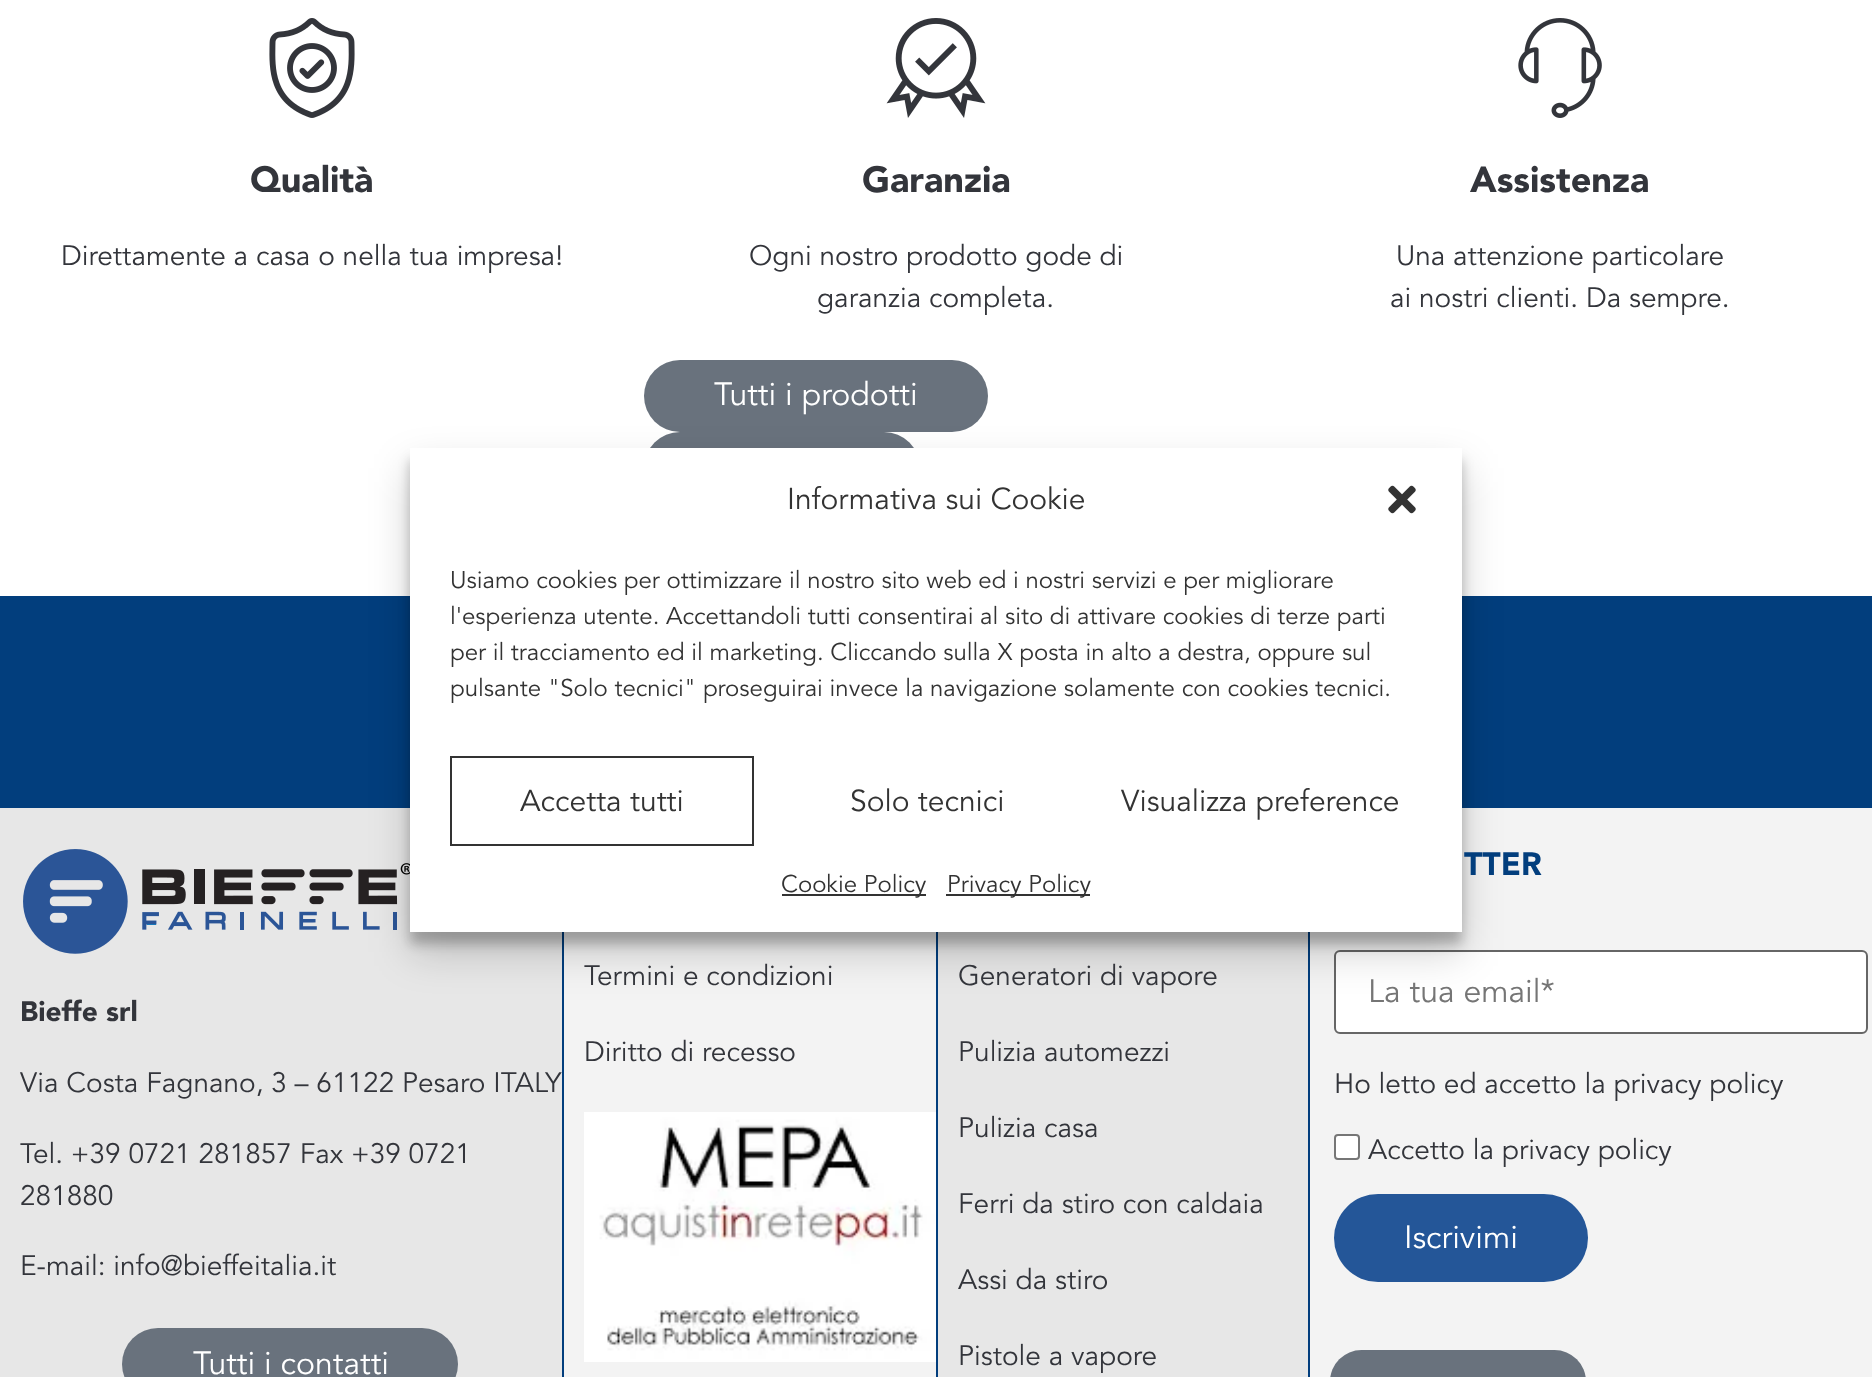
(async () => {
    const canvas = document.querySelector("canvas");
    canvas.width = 1872;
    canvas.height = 1377;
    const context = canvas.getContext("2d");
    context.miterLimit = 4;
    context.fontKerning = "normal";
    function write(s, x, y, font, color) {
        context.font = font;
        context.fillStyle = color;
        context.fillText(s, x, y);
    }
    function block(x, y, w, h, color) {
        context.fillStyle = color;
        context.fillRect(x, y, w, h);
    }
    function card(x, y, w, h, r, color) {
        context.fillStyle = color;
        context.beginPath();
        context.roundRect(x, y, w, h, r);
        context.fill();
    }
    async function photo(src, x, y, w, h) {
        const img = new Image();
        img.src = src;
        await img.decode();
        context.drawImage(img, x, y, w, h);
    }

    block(0, 0, 1872, 1377, "rgb(255, 255, 255)");
    await photo("media/1.png", 269, 18, 86, 100);
    write("Qualità", 250, 192, "900 36px Avenir", "rgb(51, 53, 59)");
    write("Direttamente a casa o nella tua impresa!", 61, 265, "28px Avenir", "rgb(51, 53, 59)");
    await photo("media/2.png", 886, 18, 100, 100);
    write("Garanzia", 862, 192, "900 36px Avenir", "rgb(51, 53, 59)");
    write("Ogni nostro prodotto gode di", 749, 265, "28px Avenir", "rgb(51, 53, 59)");
    write("garanzia completa.", 817, 307, "28px Avenir", "rgb(51, 53, 59)");
    await photo("media/3.png", 1518, 18, 84, 100);
    write("Assistenza", 1470, 192, "900 36px Avenir", "rgb(51, 53, 59)");
    write("Una attenzione particolare", 1396, 265, "28px Avenir", "rgb(51, 53, 59)");
    write("ai nostri clienti. Da sempre.", 1390, 307, "28px Avenir", "rgb(51, 53, 59)");
    card(644, 360, 344, 72, 36, "rgb(105, 114, 125)");
    write("Tutti i prodotti", 714, 405, "32px Avenir", "rgb(255, 255, 255)");
    card(644, 432, 276, 72, 36, "rgb(105, 114, 125)");
    block(0, 596, 1872, 212, "rgb(2, 62, 125)");
    block(564, 808, 1308, 569, "rgb(243, 243, 243)");
    block(0, 808, 562, 569, "rgb(231, 231, 231)");
    await photo("media/5.png", 23, 849, 387, 105);
    block(562, 932, 2, 445, "rgb(2, 62, 125)");
    block(938, 932, 370, 445, "rgb(231, 231, 231)");
    block(1308, 932, 2, 445, "rgb(2, 62, 125)");
    block(936, 932, 2, 445, "rgb(2, 62, 125)");
    context.fillStyle = "rgb(255, 255, 255)";
    context.beginPath();
    context.roundRect(1335, 951, 532, 82, 5);
    context.fill();
    context.strokeStyle = "rgb(102, 102, 102)";
    context.lineWidth = 2;
    context.stroke();
    context.fillStyle = "rgba(0, 0, 0, 0.23)";
    context.filter = "blur(6px)";
    context.beginPath();
    context.rect(410, 460, 1052, 484);
    context.fill();
    context.filter = "none";
    context.fillStyle = "rgba(0, 0, 0, 0.19)";
    context.filter = "blur(20px)";
    context.beginPath();
    context.rect(410, 468, 1052, 484);
    context.fill();
    context.filter = "none";
    block(410, 448, 1052, 484, "rgb(255, 255, 255)");
    write("Informativa sui Cookie", 787, 509, "30px Avenir", "rgb(51, 51, 51)");
    await photo("media/4.png", 1388, 485, 28, 29);
    write("Usiamo cookies per ottimizzare il nostro sito web ed i nostri servizi e per migliorare", 450, 588, "24px Avenir", "rgb(51, 51, 51)");
    write("l'esperienza utente. Accettandoli tutti consentirai al sito di attivare cookies di terze parti", 450, 624, "24px Avenir", "rgb(51, 51, 51)");
    write("per il tracciamento ed il marketing. Cliccando sulla X posta in alto a destra, oppure sul", 450, 660, "24px Avenir", "rgb(51, 51, 51)");
    write("pulsante \"Solo tecnici\" proseguirai invece la navigazione solamente con cookies tecnici.", 450, 696, "24px Avenir", "rgb(51, 51, 51)");
    context.strokeStyle = "rgb(51, 51, 51)";
    context.strokeRect(451, 757, 302, 88);
    write("Accetta tutti", 520, 811, "30px Avenir", "rgb(51, 51, 51)");
    write("Solo tecnici", 850, 811, "30px Avenir", "rgb(51, 51, 51)");
    write("Visualizza preference", 1121, 811, "30px Avenir", "rgb(51, 51, 51)");
    block(782, 894, 144, 2, "rgb(51, 51, 51)");
    write("Cookie Policy", 781, 892, "24px Avenir", "rgb(51, 51, 51)");
    block(946, 894, 144, 2, "rgb(51, 51, 51)");
    write("Privacy Policy", 947, 892, "24px Avenir", "rgb(51, 51, 51)");
    write("Bieffe srl", 20, 1021, "900 28px Avenir", "rgb(51, 53, 59)");
    write("Via Costa Fagnano, 3 – 61122 Pesaro ITALY", 20, 1092, "28px Avenir", "rgb(51, 53, 59)");
    write("Tel. +39 0721 281857 Fax +39 0721", 20, 1163, "28px Avenir", "rgb(51, 53, 59)");
    write("281880", 20, 1205, "28px Avenir", "rgb(51, 53, 59)");
    write("E-mail: info@bieffeitalia.it", 20, 1275, "28px Avenir", "rgb(51, 53, 59)");
    card(122, 1328, 336, 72, 36, "rgb(105, 114, 125)");
    write("Tutti i contatti", 193, 1374, "32px Avenir", "rgb(255, 255, 255)");
    write("Termini e condizioni", 584, 985, "28px Avenir", "rgb(51, 53, 59)");
    write("Diritto di recesso", 584, 1061, "28px Avenir", "rgb(51, 53, 59)");
    await photo("media/6.png", 584, 1112, 352, 250);
    write("Generatori di vapore", 958, 985, "28px Avenir", "rgb(51, 53, 59)");
    write("Pulizia automezzi", 958, 1061, "28px Avenir", "rgb(51, 53, 59)");
    write("Pulizia casa", 958, 1137, "28px Avenir", "rgb(51, 53, 59)");
    write("Ferri da stiro con caldaia", 958, 1213, "28px Avenir", "rgb(51, 53, 59)");
    write("Assi da stiro", 958, 1289, "28px Avenir", "rgb(51, 53, 59)");
    write("Pistole a vapore", 958, 1365, "28px Avenir", "rgb(51, 53, 59)");
    write("TTER", 1464, 875, "900 32px Avenir", "rgb(2, 62, 125)");
    write("La tua email*", 1368, 1002, "32px Avenir", "rgb(117, 117, 117)");
    write("Ho letto ed accetto la privacy policy", 1334, 1093, "28px Avenir", "rgb(51, 53, 59)");
    context.fillStyle = "rgb(255, 255, 255)";
    context.beginPath();
    context.roundRect(1335, 1135, 24, 24, 3);
    context.fill();
    context.strokeStyle = "rgb(118, 118, 118)";
    context.stroke();
    write("Accetto la privacy policy", 1368, 1159, "28px Avenir", "rgb(51, 53, 59)");
    card(1334, 1194, 254, 88, 44, "rgb(36, 86, 152)");
    write("Iscrivimi", 1404, 1248, "32px Avenir", "rgb(255, 255, 255)");
    card(1330, 1350, 256, 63, 36, "rgb(105, 114, 125)");
})();
